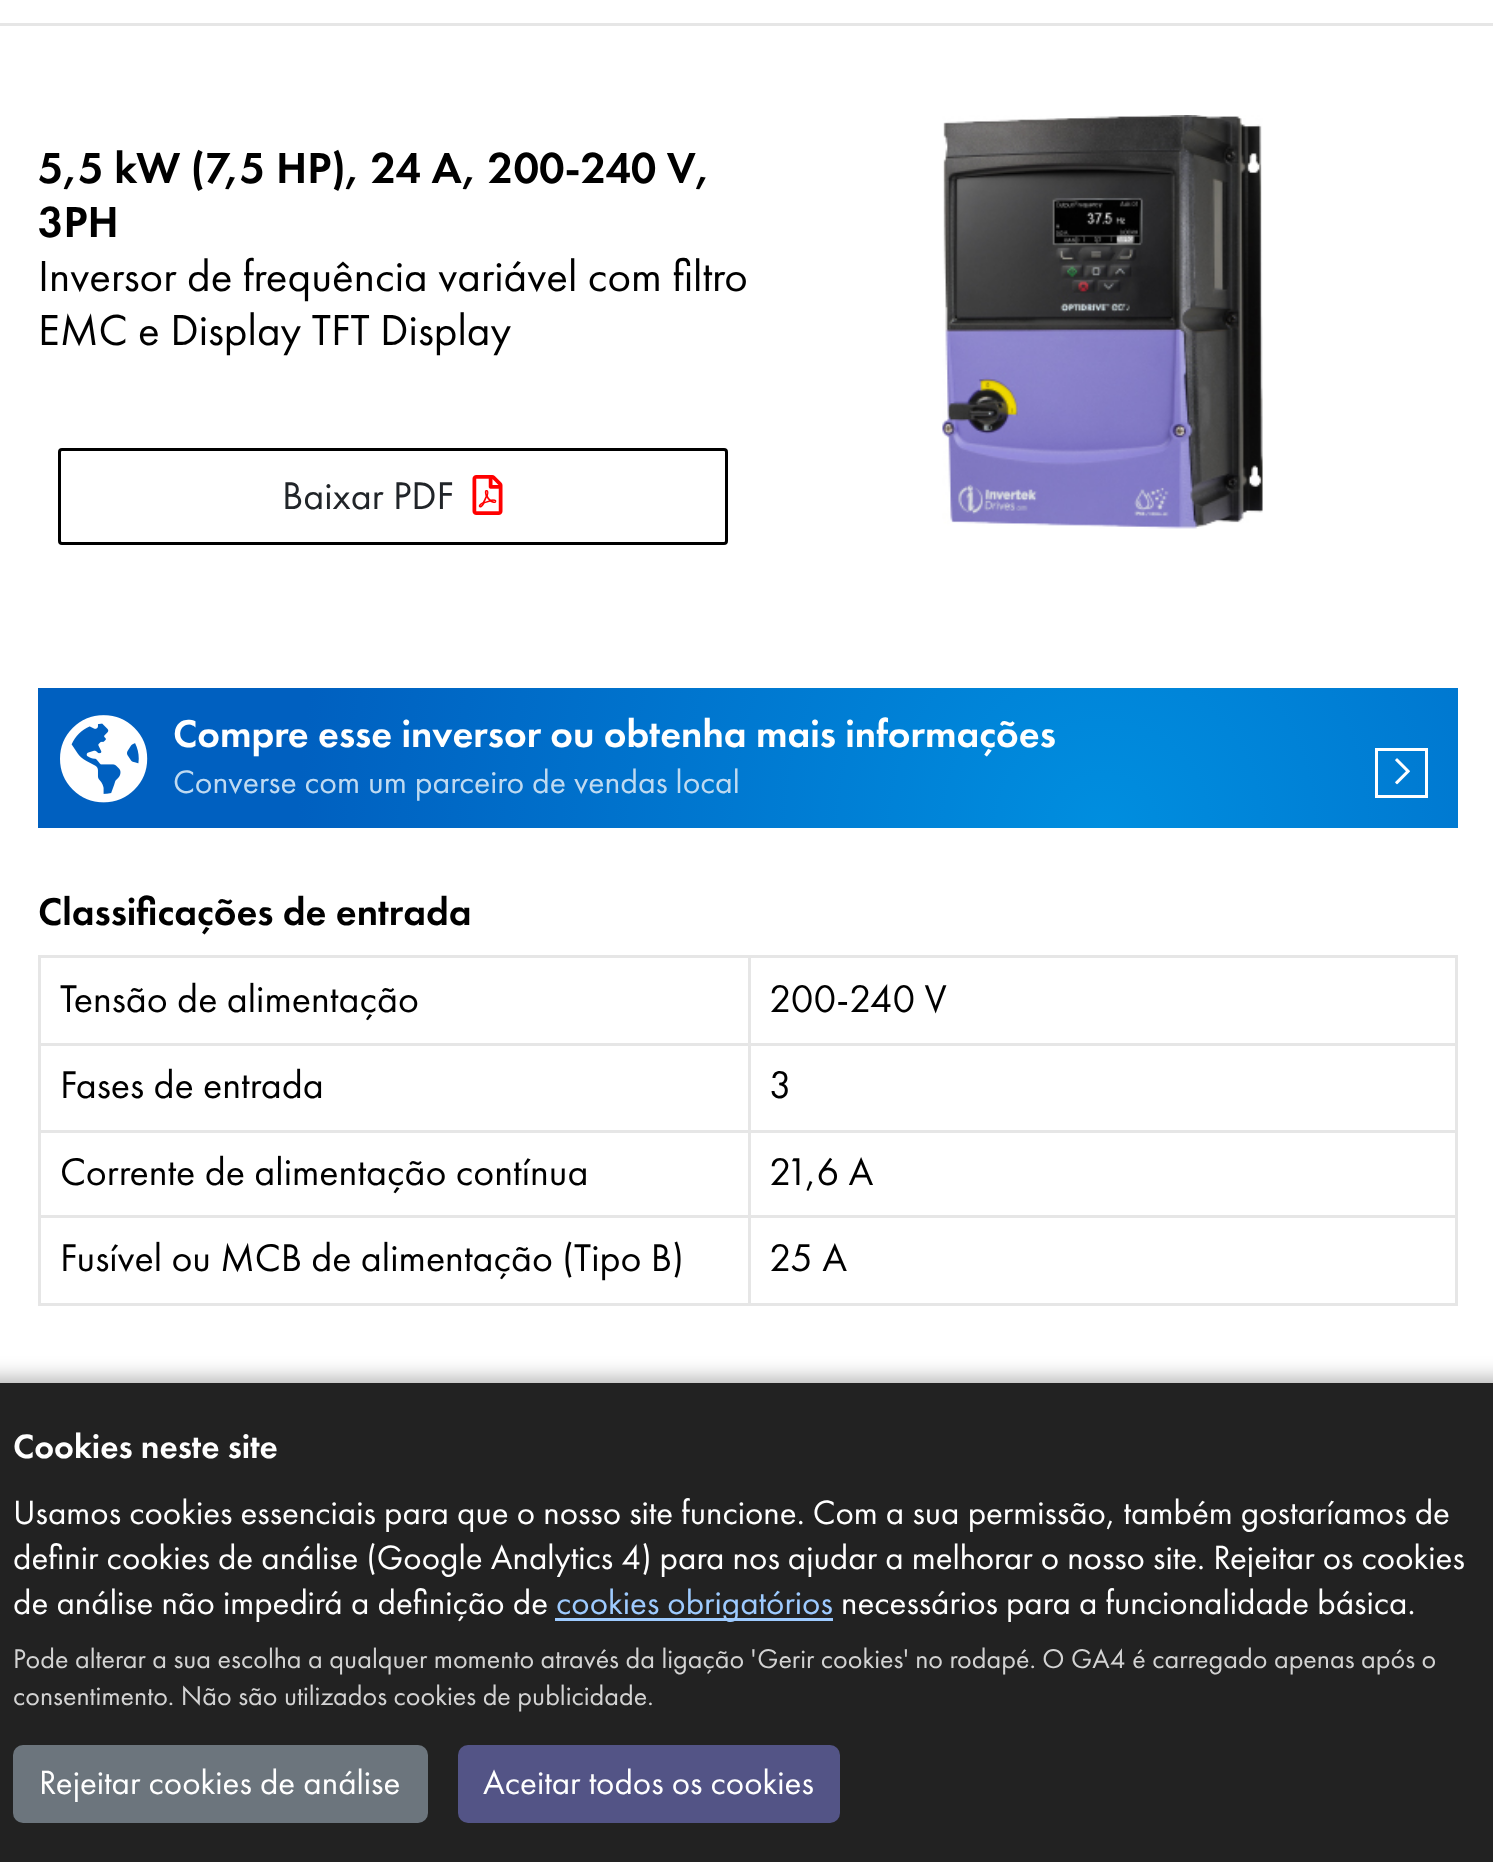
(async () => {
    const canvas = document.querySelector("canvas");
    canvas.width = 1493;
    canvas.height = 1862;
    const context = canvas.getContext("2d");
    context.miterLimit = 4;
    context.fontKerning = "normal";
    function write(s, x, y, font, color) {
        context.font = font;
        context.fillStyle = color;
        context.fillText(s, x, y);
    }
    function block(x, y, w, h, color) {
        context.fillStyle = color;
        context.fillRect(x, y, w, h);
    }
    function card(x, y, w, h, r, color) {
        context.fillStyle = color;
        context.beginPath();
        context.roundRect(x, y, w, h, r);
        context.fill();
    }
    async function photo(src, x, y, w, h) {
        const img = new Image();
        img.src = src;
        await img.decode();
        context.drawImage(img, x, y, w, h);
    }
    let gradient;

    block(0, 0, 1493, 1862, "rgb(255, 255, 255)");
    block(0, 23, 1493, 3, "rgb(230, 230, 230)");
    write("5,5 kW (7,5 HP), 24 A, 200-240 V,", 38, 183, "500 45px Futura PT", "rgb(0, 0, 0)");
    write("3PH", 38, 237, "500 45px Futura PT", "rgb(0, 0, 0)");
    write("Inversor de frequência variável com filtro", 38, 291, "45px Futura PT", "rgb(0, 0, 0)");
    write("EMC e Display TFT Display", 38, 345, "45px Futura PT", "rgb(0, 0, 0)");
    context.beginPath();
    context.roundRect(59.5, 449.5, 667, 94, 2.5);
    context.strokeStyle = "rgb(0, 0, 0)";
    context.lineWidth = 3;
    context.stroke();
    write("Baixar PDF", 282, 509, "40px Futura PT", "rgb(33, 37, 41)");
    await photo("media/1.png", 472, 475, 31, 40);
    await photo("media/2.png", 942, 115, 321, 414);
    gradient = context.createRadialGradient(1103, 828, 0, 1103, 828, 1074);
    gradient.addColorStop(0, "rgb(0, 142, 223)");
    gradient.addColorStop(0.75, "rgb(0, 96, 192)");
    context.fillStyle = gradient;
    context.fillRect(38, 688, 1420, 140);
    await photo("media/3.png", 60, 715, 88, 88);
    write("Compre esse inversor ou obtenha mais informações", 173, 747, "500 40px Futura PT", "rgb(255, 255, 255)");
    write("Converse com um parceiro de vendas local", 173, 793, "33.75px Futura PT", "rgb(191, 218, 241)");
    context.strokeStyle = "rgb(255, 255, 255)";
    context.strokeRect(1376.5, 749.5, 50, 47);
    await photo("media/4.png", 1395, 758, 15, 27);
    write("Classificações de entrada", 38, 925, "500 40px Futura PT", "rgb(0, 0, 0)");
    block(748, 955, 710, 3, "rgb(230, 230, 230)");
    block(748, 1043, 710, 3, "rgb(230, 230, 230)");
    block(748, 1130, 710, 3, "rgb(230, 230, 230)");
    block(748, 1215, 710, 3, "rgb(230, 230, 230)");
    block(1455, 1215, 3, 90, "rgb(230, 230, 230)");
    block(748, 1303, 710, 3, "rgb(230, 230, 230)");
    block(748, 1215, 3, 90, "rgb(230, 230, 230)");
    block(38, 1215, 712, 3, "rgb(230, 230, 230)");
    block(748, 1130, 3, 88, "rgb(230, 230, 230)");
    block(38, 1130, 712, 3, "rgb(230, 230, 230)");
    block(748, 1043, 3, 90, "rgb(230, 230, 230)");
    block(38, 1043, 712, 3, "rgb(230, 230, 230)");
    block(748, 955, 3, 90, "rgb(230, 230, 230)");
    block(38, 955, 712, 3, "rgb(230, 230, 230)");
    block(38, 1303, 712, 3, "rgb(230, 230, 230)");
    block(38, 1215, 3, 90, "rgb(230, 230, 230)");
    block(38, 1130, 3, 88, "rgb(230, 230, 230)");
    block(38, 1043, 3, 90, "rgb(230, 230, 230)");
    block(38, 955, 3, 90, "rgb(230, 230, 230)");
    write("Tensão de alimentação", 60, 1012, "40px Futura PT", "rgb(0, 0, 0)");
    block(1455, 1130, 3, 88, "rgb(230, 230, 230)");
    block(1455, 1043, 3, 90, "rgb(230, 230, 230)");
    block(1455, 955, 3, 90, "rgb(230, 230, 230)");
    write("200-240 V", 769, 1012, "40px Futura PT", "rgb(0, 0, 0)");
    write("Fases de entrada", 60, 1098, "40px Futura PT", "rgb(0, 0, 0)");
    write("3", 769, 1098, "40px Futura PT", "rgb(0, 0, 0)");
    write("Corrente de alimentação contínua", 60, 1185, "40px Futura PT", "rgb(0, 0, 0)");
    write("21,6 A", 769, 1185, "40px Futura PT", "rgb(0, 0, 0)");
    write("Fusível ou MCB de alimentação (Tipo B)", 60, 1271, "40px Futura PT", "rgb(0, 0, 0)");
    write("25 A", 769, 1271, "40px Futura PT", "rgb(0, 0, 0)");
    context.fillStyle = "rgba(0, 0, 0, 0.3)";
    context.filter = "blur(10px)";
    context.beginPath();
    context.rect(-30, 1378, 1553, 480);
    context.fill();
    context.filter = "none";
    block(0, 1383, 1493, 479, "rgb(34, 34, 34)");
    write("Cookies neste site", 13, 1458, "500 35px Futura PT", "rgb(255, 255, 255)");
    write("Usamos cookies essenciais para que o nosso site funcione. Com a sua permissão, também gostaríamos de", 13, 1524, "35px Futura PT", "rgb(255, 255, 255)");
    write("definir cookies de análise (Google Analytics 4) para nos ajudar a melhorar o nosso site. Rejeitar os cookies", 13, 1569, "35px Futura PT", "rgb(255, 255, 255)");
    write("de análise não impedirá a definição de", 13, 1614, "35px Futura PT", "rgb(255, 255, 255)");
    block(555, 1618, 278, 3, "rgb(158, 203, 255)");
    write("cookies obrigatórios", 556, 1614, "35px Futura PT", "rgb(158, 203, 255)");
    write("necessários para a funcionalidade básica.", 841, 1614, "35px Futura PT", "rgb(255, 255, 255)");
    write("Pode alterar a sua escolha a qualquer momento através da ligação 'Gerir cookies' no rodapé. O GA4 é carregado apenas após o", 13, 1668, "28px Futura PT", "rgb(211, 211, 211)");
    write("consentimento. Não são utilizados cookies de publicidade.", 13, 1705, "28px Futura PT", "rgb(211, 211, 211)");
    card(13, 1745, 415, 78, 10, "rgb(108, 117, 125)");
    write("Rejeitar cookies de análise", 39, 1794, "35px Futura PT", "rgb(255, 255, 255)");
    card(458, 1745, 382, 78, 10, "rgb(83, 84, 134)");
    write("Aceitar todos os cookies", 483, 1794, "35px Futura PT", "rgb(255, 255, 255)");
})();
